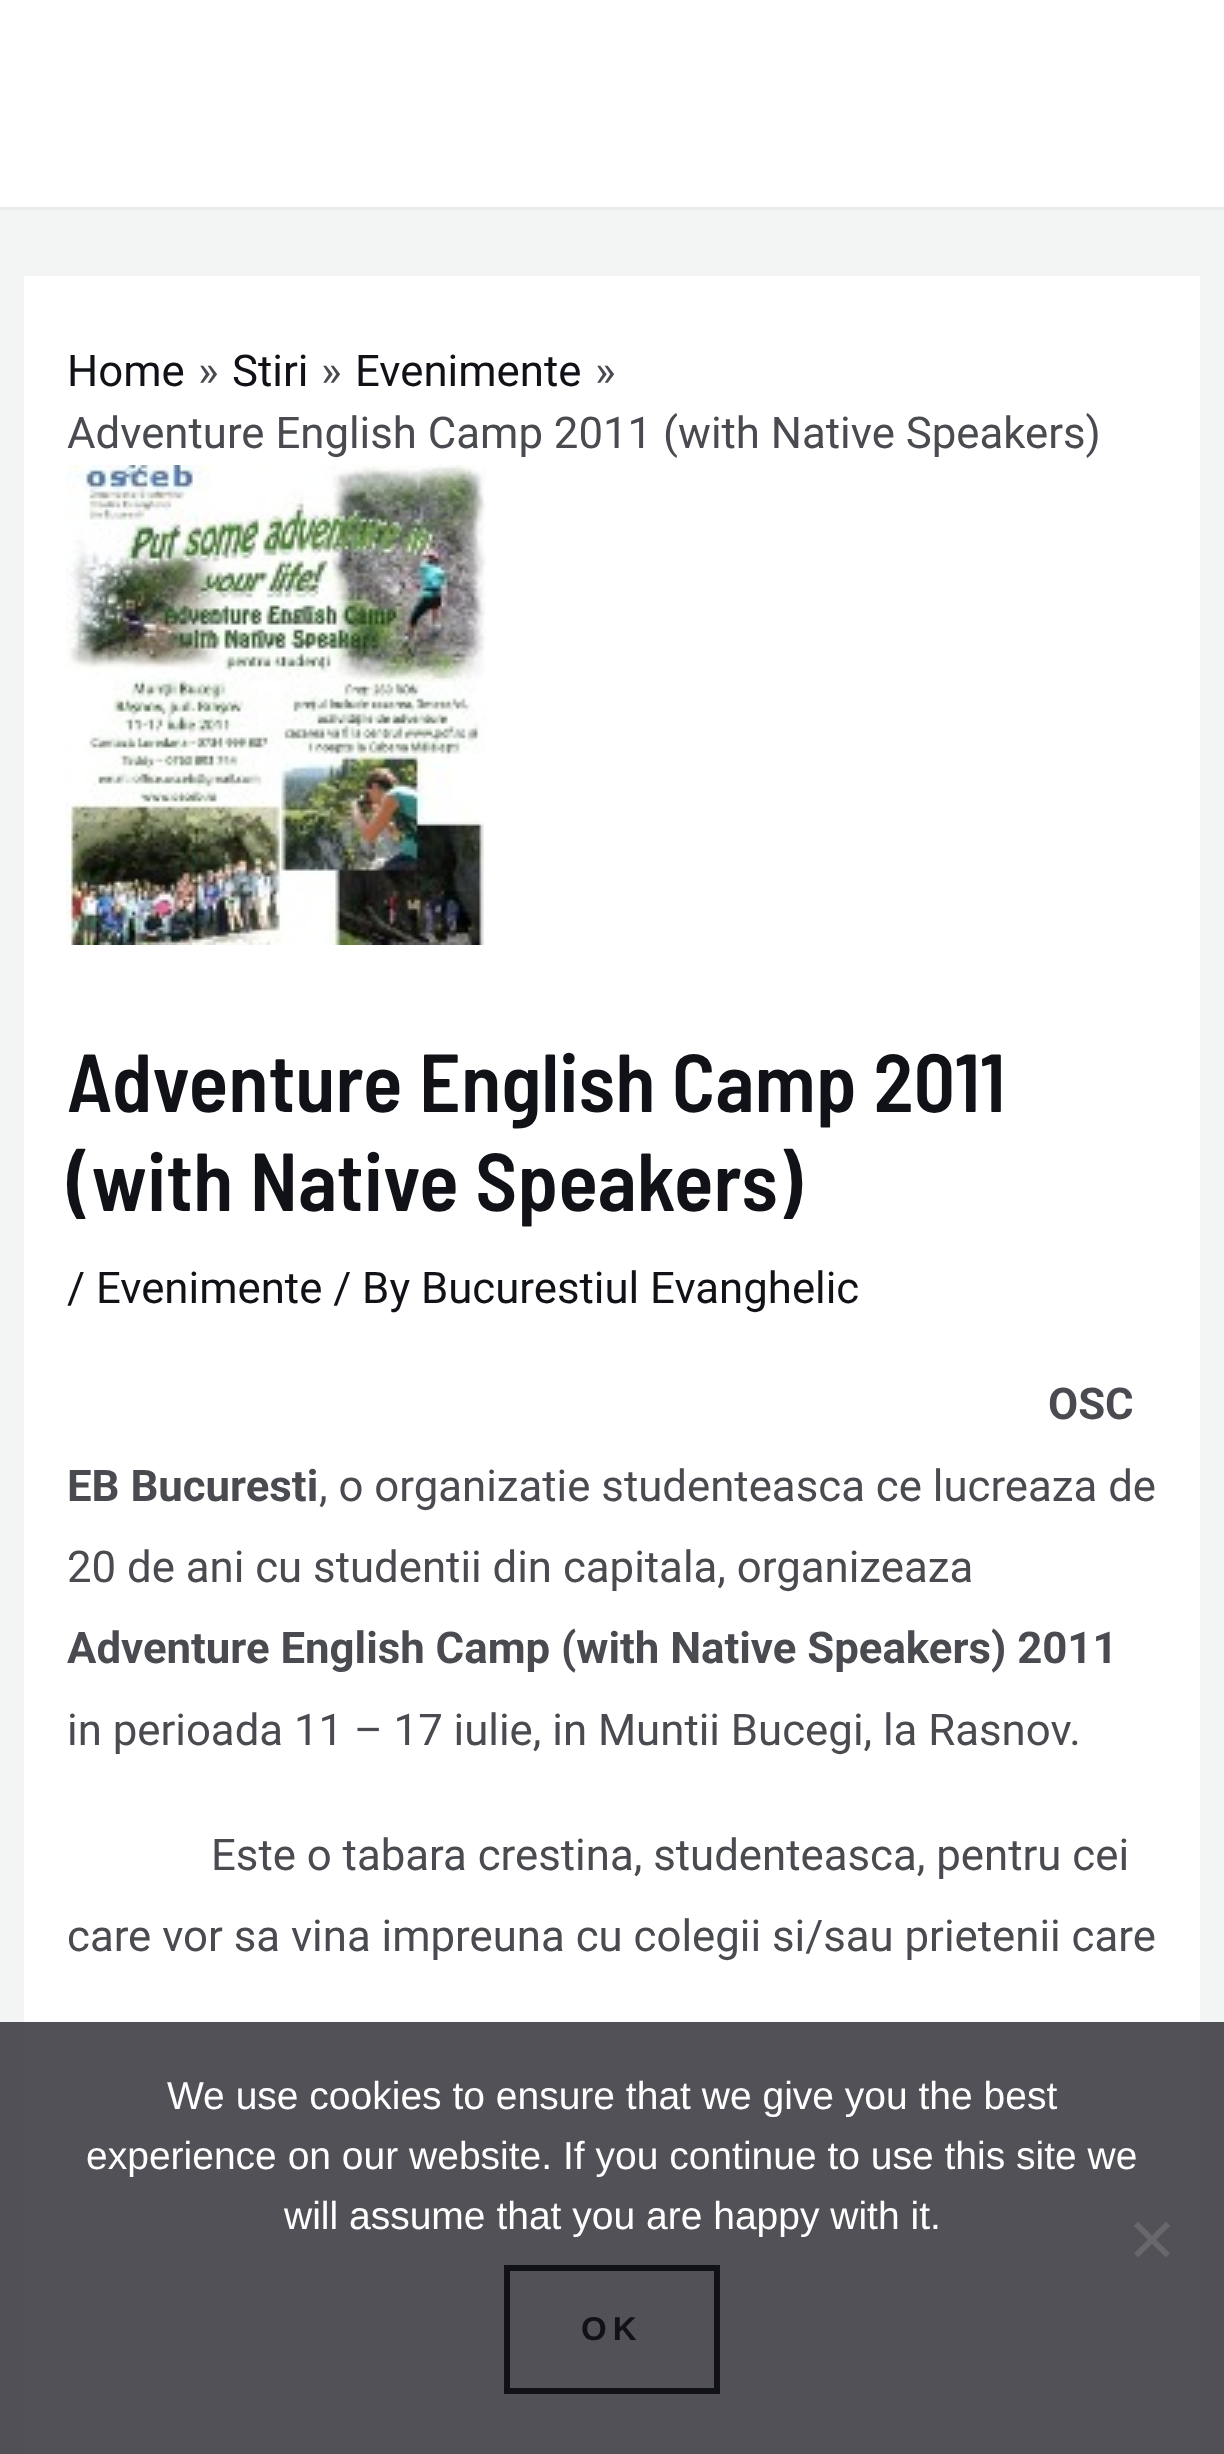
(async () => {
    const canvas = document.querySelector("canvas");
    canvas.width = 1224;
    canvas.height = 2454;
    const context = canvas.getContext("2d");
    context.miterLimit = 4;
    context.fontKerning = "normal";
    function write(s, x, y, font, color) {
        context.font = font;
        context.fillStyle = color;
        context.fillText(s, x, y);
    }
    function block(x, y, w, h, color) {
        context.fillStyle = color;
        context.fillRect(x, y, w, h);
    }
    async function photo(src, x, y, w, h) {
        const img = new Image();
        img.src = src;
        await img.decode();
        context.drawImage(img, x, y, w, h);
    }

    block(0, 0, 1224, 2454, "rgb(243, 245, 245)");
    block(0, 0, 1224, 207, "rgb(255, 255, 255)");
    block(0, 207, 1224, 3, "rgb(234, 234, 234)");
    block(24, 276, 1176, 2178, "rgb(255, 255, 255)");
    write("Home", 67, 386, "43.75px Roboto", "rgb(16, 18, 24)");
    write("»", 198, 386, "43.75px Roboto", "rgb(73, 75, 81)");
    write("Stiri", 232, 386, "43.75px Roboto", "rgb(16, 18, 24)");
    write("»", 321, 386, "43.75px Roboto", "rgb(73, 75, 81)");
    write("Evenimente", 355, 386, "43.75px Roboto", "rgb(16, 18, 24)");
    write("»", 595, 386, "43.75px Roboto", "rgb(73, 75, 81)");
    write("Adventure English Camp 2011 (with Native Speakers)", 67, 448, "43.75px Roboto", "rgb(73, 75, 81)");
    await photo("media/1.png", 66, 465, 420, 480);
    write("Adventure English Camp 2011", 67, 1112, "600 82px Barlow Semi Condensed", "rgb(16, 18, 24)");
    write("(with Native Speakers)", 67, 1211, "600 82px Barlow Semi Condensed", "rgb(16, 18, 24)");
    write("/ Evenimente / By Bucurestiul Evanghelic", 67, 1303, "43.75px Roboto", "rgb(16, 18, 24)");
    write("OSC", 1048, 1419, "bold 43.75px Roboto", "rgb(73, 75, 81)");
    write("EB Bucuresti", 67, 1501, "bold 43.75px Roboto", "rgb(73, 75, 81)");
    write(", o organizatie studenteasca ce lucreaza de", 319, 1501, "43.75px Roboto", "rgb(73, 75, 81)");
    write("20 de ani cu studentii din capitala, organizeaza", 67, 1582, "43.75px Roboto", "rgb(73, 75, 81)");
    write("Adventure English Camp (with Native Speakers) 2011", 67, 1663, "bold 43.75px Roboto", "rgb(73, 75, 81)");
    write("in perioada 11 – 17 iulie, in Muntii Bucegi, la Rasnov.", 67, 1745, "43.75px Roboto", "rgb(73, 75, 81)");
    write("Este o tabara crestina, studenteasca, pentru cei", 211, 1870, "43.75px Roboto", "rgb(73, 75, 81)");
    write("care vor sa vina impreuna cu colegii si/sau prietenii care", 67, 1951, "43.75px Roboto", "rgb(73, 75, 81)");
    block(0, 2022, 1224, 432, "rgba(50, 50, 58, 0.85)");
    write("We use cookies to ensure that we give you the best", 167, 2109, "39px Liberation Sans", "rgb(255, 255, 255)");
    write("experience on our website. If you continue to use this site we", 86, 2169, "39px Liberation Sans", "rgb(255, 255, 255)");
    write("will assume that you are happy with it.", 284, 2229, "39px Liberation Sans", "rgb(255, 255, 255)");
    context.fillStyle = "rgb(104, 104, 108)";
    context.beginPath();
    context.moveTo(1166, 2221.5);
    context.lineTo(1170, 2226);
    context.lineTo(1138, 2257.5);
    context.lineTo(1134, 2253.5);
    context.closePath();
    context.fill();
    context.beginPath();
    context.moveTo(1134, 2226);
    context.lineTo(1138, 2221.5);
    context.lineTo(1170, 2253.5);
    context.lineTo(1166, 2257.5);
    context.closePath();
    context.fill();
    context.strokeStyle = "rgb(16, 18, 24)";
    context.lineWidth = 6;
    context.strokeRect(507, 2268, 210, 123);
    context.letterSpacing = "6px";
    write("OK", 581, 2340, "bold 33px Liberation Sans", "rgb(16, 18, 24)");
})();
